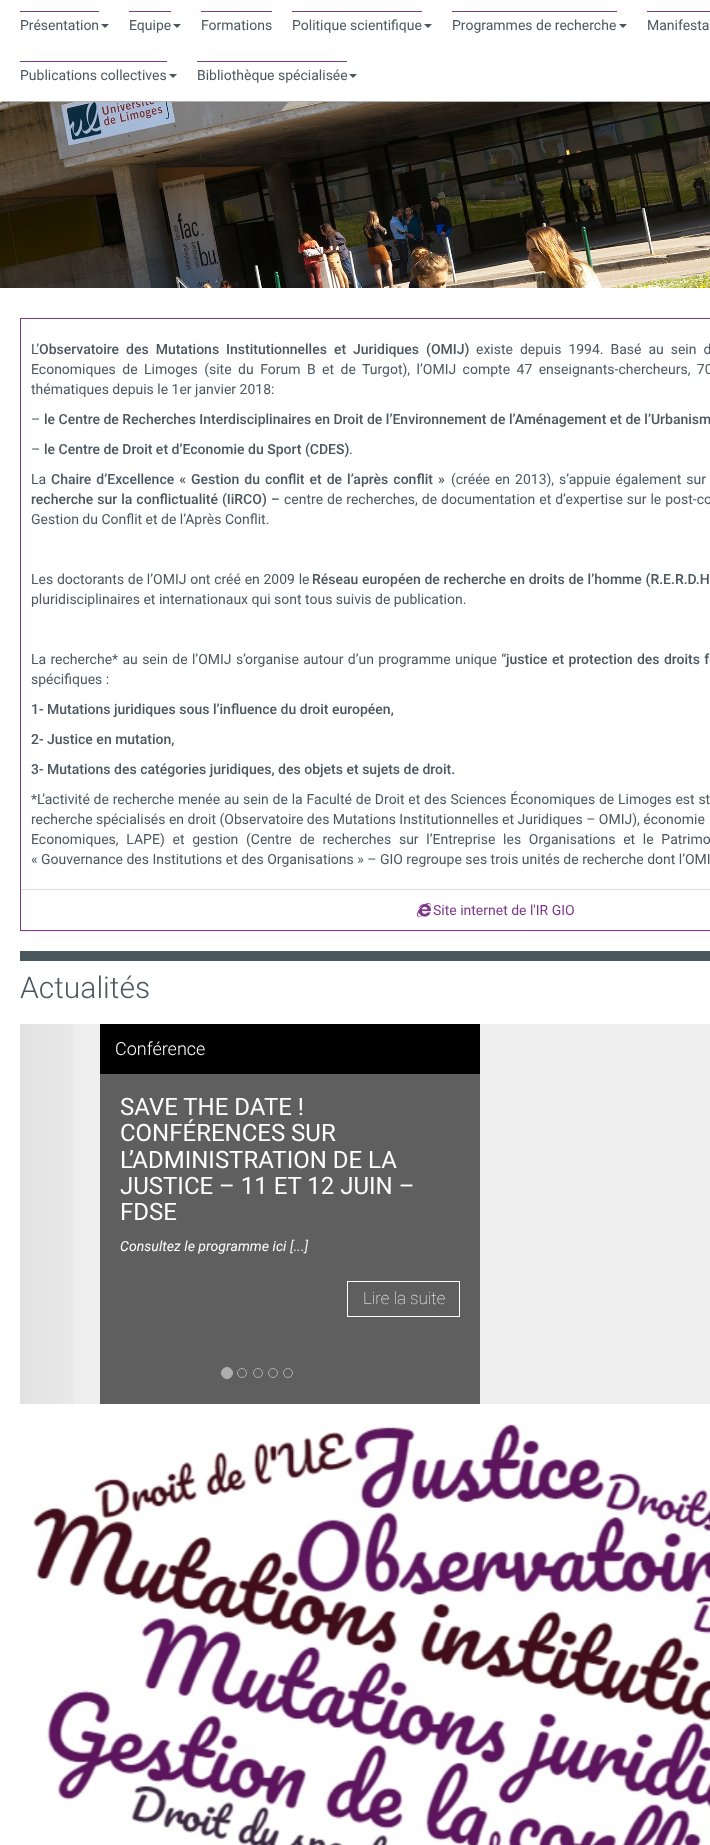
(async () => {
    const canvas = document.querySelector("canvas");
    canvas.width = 710;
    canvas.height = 1845;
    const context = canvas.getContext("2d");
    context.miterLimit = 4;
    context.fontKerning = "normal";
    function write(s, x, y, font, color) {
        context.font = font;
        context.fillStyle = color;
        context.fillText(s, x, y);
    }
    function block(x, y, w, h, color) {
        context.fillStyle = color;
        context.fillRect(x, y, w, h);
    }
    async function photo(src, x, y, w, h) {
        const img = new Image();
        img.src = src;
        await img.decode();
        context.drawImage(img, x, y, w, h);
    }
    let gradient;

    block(0, 0, 710, 1845, "rgb(255, 255, 255)");
    await photo("media/1.png", 0, 101, 710, 187);
    context.fillStyle = "rgb(176, 176, 176)";
    context.filter = "blur(0.5px)";
    context.beginPath();
    context.rect(1, 1, 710, 101);
    context.fill();
    context.filter = "none";
    block(0, 0, 710, 101, "rgb(255, 255, 255)");
    write("Présentation", 20, 30, "14px Roboto", "rgb(75, 87, 95)");
    block(20, 11, 79, 1, "rgb(126, 56, 138)");
    context.fillStyle = "rgb(75, 87, 95)";
    context.beginPath();
    context.moveTo(101, 24);
    context.lineTo(109, 24);
    context.lineTo(105, 28);
    context.closePath();
    context.fill();
    write("Equipe", 129, 30, "14px Roboto", "rgb(75, 87, 95)");
    block(129, 11, 42, 1, "rgb(126, 56, 138)");
    context.fillStyle = "rgb(75, 87, 95)";
    context.beginPath();
    context.moveTo(173, 24);
    context.lineTo(181, 24);
    context.lineTo(177, 28);
    context.closePath();
    context.fill();
    write("Formations", 201, 30, "14px Roboto", "rgb(75, 87, 95)");
    block(201, 11, 71, 1, "rgb(126, 56, 138)");
    write("Politique scientifique", 292, 30, "14px Roboto", "rgb(75, 87, 95)");
    block(292, 11, 130, 1, "rgb(126, 56, 138)");
    context.fillStyle = "rgb(75, 87, 95)";
    context.beginPath();
    context.moveTo(424, 24);
    context.lineTo(432, 24);
    context.lineTo(428, 28);
    context.closePath();
    context.fill();
    write("Programmes de recherche", 452, 30, "14px Roboto", "rgb(75, 87, 95)");
    block(452, 11, 165, 1, "rgb(126, 56, 138)");
    context.fillStyle = "rgb(75, 87, 95)";
    context.beginPath();
    context.moveTo(619, 24);
    context.lineTo(627, 24);
    context.lineTo(623, 28);
    context.closePath();
    context.fill();
    write("Manifesta", 647, 30, "14px Roboto", "rgb(75, 87, 95)");
    block(647, 11, 63, 1, "rgb(126, 56, 138)");
    write("Publications collectives", 20, 80, "14px Roboto", "rgb(75, 87, 95)");
    block(20, 61, 147, 1, "rgb(126, 56, 138)");
    context.fillStyle = "rgb(75, 87, 95)";
    context.beginPath();
    context.moveTo(169, 74);
    context.lineTo(177, 74);
    context.lineTo(173, 78);
    context.closePath();
    context.fill();
    write("Bibliothèque spécialisée", 197, 80, "14px Roboto", "rgb(75, 87, 95)");
    block(197, 61, 150, 1, "rgb(126, 56, 138)");
    context.fillStyle = "rgb(75, 87, 95)";
    context.beginPath();
    context.moveTo(349, 74);
    context.lineTo(357, 74);
    context.lineTo(353, 78);
    context.closePath();
    context.fill();
    context.save();
    context.beginPath();
    context.rect(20, 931, 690, 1);
    context.clip();
    context.fillStyle = "rgba(0, 0, 0, 0.05)";
    context.filter = "blur(0.5px)";
    context.beginPath();
    context.rect(20, 319, 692, 613);
    context.fill();
    context.filter = "none";
    context.restore();
    context.strokeStyle = "rgb(126, 56, 138)";
    context.strokeRect(20.5, 318.5, 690, 612);
    write("L’", 31, 354, "14px Roboto", "rgb(75, 87, 95)");
    context.wordSpacing = "3.5px";
    write("Observatoire des Mutations Institutionnelles et Juridiques (OMIJ)", 39, 354, "500 14px Roboto", "rgb(75, 87, 95)");
    write("existe depuis 1994. Basé au sein d", 476, 354, "14px Roboto", "rgb(75, 87, 95)");
    context.wordSpacing = "3px";
    write("Economiques de Limoges (site du Forum B et de Turgot), l’OMIJ compte 47 enseignants-chercheurs, 70", 31, 374, "14px Roboto", "rgb(75, 87, 95)");
    context.wordSpacing = "0px";
    write("thématiques depuis le 1er janvier 2018:", 31, 394, "14px Roboto", "rgb(75, 87, 95)");
    write("–", 31, 424, "14px Roboto", "rgb(75, 87, 95)");
    write("le Centre de Recherches Interdisciplinaires en Droit de l’Environnement de l’Aménagement et de l’Urbanism", 44, 424, "500 14px Roboto", "rgb(75, 87, 95)");
    write("–", 31, 454, "14px Roboto", "rgb(75, 87, 95)");
    write("le Centre de Droit et d’Economie du Sport (CDES)", 44, 454, "500 14px Roboto", "rgb(75, 87, 95)");
    write(".", 349, 454, "14px Roboto", "rgb(75, 87, 95)");
    write("La", 31, 484, "14px Roboto", "rgb(75, 87, 95)");
    context.wordSpacing = "1.5px";
    write("Chaire d’Excellence « Gestion du conflit et de l’après conflit »", 51, 484, "500 14px Roboto", "rgb(75, 87, 95)");
    write("(créée en 2013), s’appuie également sur", 451, 484, "14px Roboto", "rgb(75, 87, 95)");
    context.wordSpacing = "0.5px";
    write("recherche sur la conflictualité (IiRCO) –", 31, 504, "500 14px Roboto", "rgb(75, 87, 95)");
    write("centre de recherches, de documentation et d’expertise sur le post-co", 284, 504, "14px Roboto", "rgb(75, 87, 95)");
    context.wordSpacing = "0px";
    write("Gestion du Conflit et de l’Après Conflit.", 31, 524, "14px Roboto", "rgb(75, 87, 95)");
    context.wordSpacing = "0.25px";
    write("Les doctorants de l’OMIJ ont créé en 2009 le", 31, 584, "14px Roboto", "rgb(75, 87, 95)");
    write("Réseau européen de recherche en droits de l’homme (R.E.R.D.H", 312, 584, "500 14px Roboto", "rgb(75, 87, 95)");
    context.wordSpacing = "0px";
    write("pluridisciplinaires et internationaux qui sont tous suivis de publication.", 31, 604, "14px Roboto", "rgb(75, 87, 95)");
    context.wordSpacing = "0.9px";
    write("La recherche* au sein de l’OMIJ s’organise autour d’un programme unique “", 31, 664, "14px Roboto", "rgb(75, 87, 95)");
    write("justice et protection des droits f", 506, 664, "500 14px Roboto", "rgb(75, 87, 95)");
    context.wordSpacing = "0px";
    write("spécifiques :", 31, 684, "14px Roboto", "rgb(75, 87, 95)");
    write("1- Mutations juridiques sous l’influence du droit européen,", 31, 714, "500 14px Roboto", "rgb(75, 87, 95)");
    write("2- Justice en mutation,", 31, 744, "500 14px Roboto", "rgb(75, 87, 95)");
    write("3- Mutations des catégories juridiques, des objets et sujets de droit.", 31, 774, "500 14px Roboto", "rgb(75, 87, 95)");
    context.wordSpacing = "0.3px";
    write("*L’activité de recherche menée au sein de la Faculté de Droit et des Sciences Économiques de Limoges est st", 31, 804, "14px Roboto", "rgb(75, 87, 95)");
    context.wordSpacing = "0px";
    write("recherche spécialisés en droit (Observatoire des Mutations Institutionnelles et Juridiques – OMIJ), économie", 31, 824, "14px Roboto", "rgb(75, 87, 95)");
    context.wordSpacing = "4.25px";
    write("Economiques, LAPE) et gestion (Centre de recherches sur l’Entreprise les Organisations et le Patrimo", 31, 844, "14px Roboto", "rgb(75, 87, 95)");
    context.wordSpacing = "0px";
    write("« Gouvernance des Institutions et des Organisations » – GIO regroupe ses trois unités de recherche dont l’OMI", 31, 864, "14px Roboto", "rgb(75, 87, 95)");
    block(21, 889, 689, 1, "rgb(221, 221, 221)");
    await photo("media/2.png", 417, 903, 14, 14);
    write("Site internet de l'IR GIO", 433, 915, "14px Roboto", "rgb(126, 56, 138)");
    block(20, 951, 690, 10, "rgb(75, 87, 95)");
    write("Actualités", 20, 998, "300 30px Roboto", "rgb(75, 87, 95)");
    block(20, 1024, 690, 380, "rgb(238, 238, 238)");
    gradient = context.createLinearGradient(20, 1214, 115, 1214);
    gradient.addColorStop(0, "rgba(0, 0, 0, 0.05)");
    gradient.addColorStop(1, "rgba(0, 0, 0, 0)");
    context.fillStyle = gradient;
    context.fillRect(20, 1024, 54, 380);
    block(100, 1074, 380, 330, "rgb(95, 95, 95)");
    block(100, 1024, 380, 50, "rgb(0, 0, 0)");
    write("Conférence", 115, 1055, "300 18px Roboto", "rgb(255, 255, 255)");
    write("SAVE THE DATE !", 120, 1115, "24px Roboto", "rgb(255, 255, 255)");
    write("CONFÉRENCES SUR", 120, 1141, "24px Roboto", "rgb(255, 255, 255)");
    write("L’ADMINISTRATION DE LA", 120, 1168, "24px Roboto", "rgb(255, 255, 255)");
    write("JUSTICE – 11 ET 12 JUIN –", 120, 1194, "24px Roboto", "rgb(255, 255, 255)");
    write("FDSE", 120, 1220, "24px Roboto", "rgb(255, 255, 255)");
    write("Consultez le programme ici", 120, 1251, "italic 14px Roboto", "rgb(255, 255, 255)");
    write("[...]", 290, 1251, "italic 14px Roboto", "rgb(236, 238, 240)");
    context.strokeStyle = "rgb(255, 255, 255)";
    context.strokeRect(347.5, 1281.5, 112, 35);
    write("Lire la suite", 363, 1304, "100 17px Roboto", "rgb(255, 255, 255)");
    context.fillStyle = "rgb(175, 175, 175)";
    context.beginPath();
    context.arc(227, 1373, 5.5, 0, Math.PI * 2);
    context.fill();
    context.strokeStyle = "rgb(175, 175, 175)";
    context.stroke();
    context.beginPath();
    context.arc(242, 1373, 4.5, 0, Math.PI * 2);
    context.stroke();
    context.beginPath();
    context.arc(258, 1373, 4.5, 0, Math.PI * 2);
    context.stroke();
    context.beginPath();
    context.arc(273, 1373, 4.5, 0, Math.PI * 2);
    context.stroke();
    context.beginPath();
    context.arc(288, 1373, 4.5, 0, Math.PI * 2);
    context.stroke();
    await photo("media/3.png", 33, 1423, 677, 422);
})();
